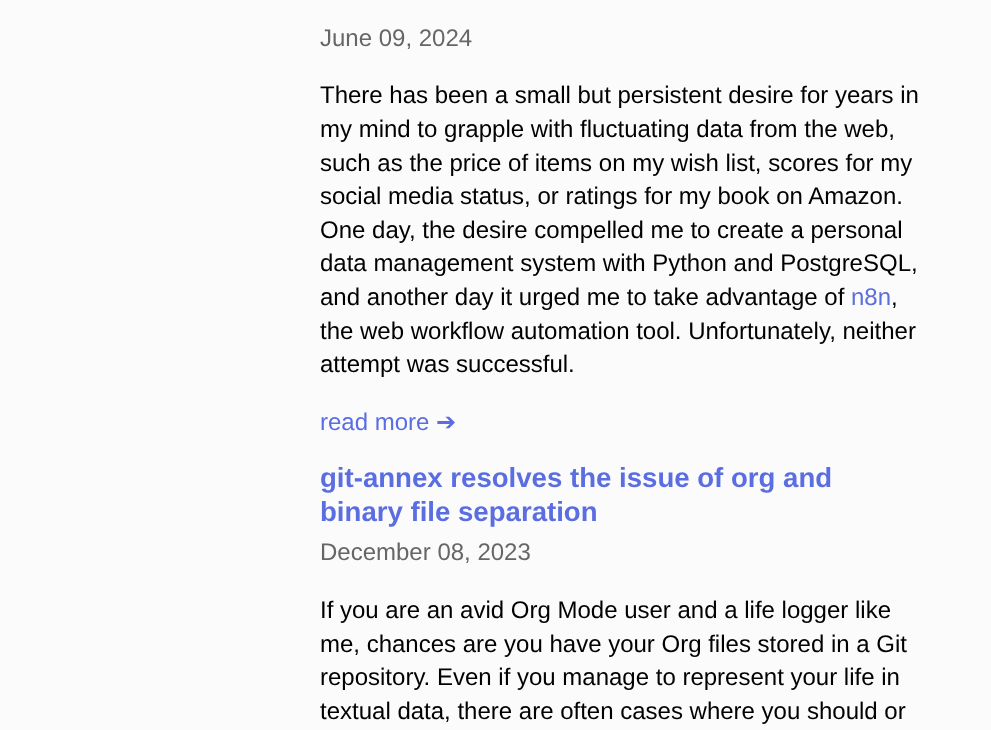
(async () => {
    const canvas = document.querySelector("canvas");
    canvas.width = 991;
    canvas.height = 730;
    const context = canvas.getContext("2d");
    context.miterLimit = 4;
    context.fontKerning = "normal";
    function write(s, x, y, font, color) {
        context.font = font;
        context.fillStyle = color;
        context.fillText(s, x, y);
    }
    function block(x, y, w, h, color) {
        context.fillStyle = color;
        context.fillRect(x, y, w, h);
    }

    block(0, 0, 991, 730, "rgb(251, 251, 251)");
    write("June 09, 2024", 320, 46, "24px Liberation Sans", "rgb(102, 102, 102)");
    write("There has been a small but persistent desire for years in", 320, 103, "24px Liberation Sans", "rgb(0, 0, 0)");
    write("my mind to grapple with fluctuating data from the web,", 320, 137, "24px Liberation Sans", "rgb(0, 0, 0)");
    write("such as the price of items on my wish list, scores for my", 320, 171, "24px Liberation Sans", "rgb(0, 0, 0)");
    write("social media status, or ratings for my book on Amazon.", 320, 204, "24px Liberation Sans", "rgb(0, 0, 0)");
    write("One day, the desire compelled me to create a personal", 320, 238, "24px Liberation Sans", "rgb(0, 0, 0)");
    write("data management system with Python and PostgreSQL,", 320, 271, "24px Liberation Sans", "rgb(0, 0, 0)");
    write("and another day it urged me to take advantage of", 320, 305, "24px Liberation Sans", "rgb(0, 0, 0)");
    write("n8n", 851, 305, "24px Liberation Sans", "rgb(91, 110, 225)");
    write(",", 891, 305, "24px Liberation Sans", "rgb(0, 0, 0)");
    write("the web workflow automation tool. Unfortunately, neither", 320, 339, "24px Liberation Sans", "rgb(0, 0, 0)");
    write("attempt was successful.", 320, 372, "24px Liberation Sans", "rgb(0, 0, 0)");
    write("read more", 320, 430, "24px Liberation Sans", "rgb(91, 110, 225)");
    write("➔", 436, 430, "24px DejaVu Sans", "rgb(91, 110, 225)");
    write("git-annex resolves the issue of org and", 320, 487, "bold 27.6px Liberation Sans", "rgb(91, 110, 225)");
    write("binary file separation", 320, 521, "bold 27.6px Liberation Sans", "rgb(91, 110, 225)");
    write("December 08, 2023", 320, 560, "24px Liberation Sans", "rgb(102, 102, 102)");
    write("If you are an avid Org Mode user and a life logger like", 320, 618, "24px Liberation Sans", "rgb(0, 0, 0)");
    write("me, chances are you have your Org files stored in a Git", 320, 652, "24px Liberation Sans", "rgb(0, 0, 0)");
    write("repository. Even if you manage to represent your life in", 320, 685, "24px Liberation Sans", "rgb(0, 0, 0)");
    write("textual data, there are often cases where you should or", 320, 719, "24px Liberation Sans", "rgb(0, 0, 0)");
})();
